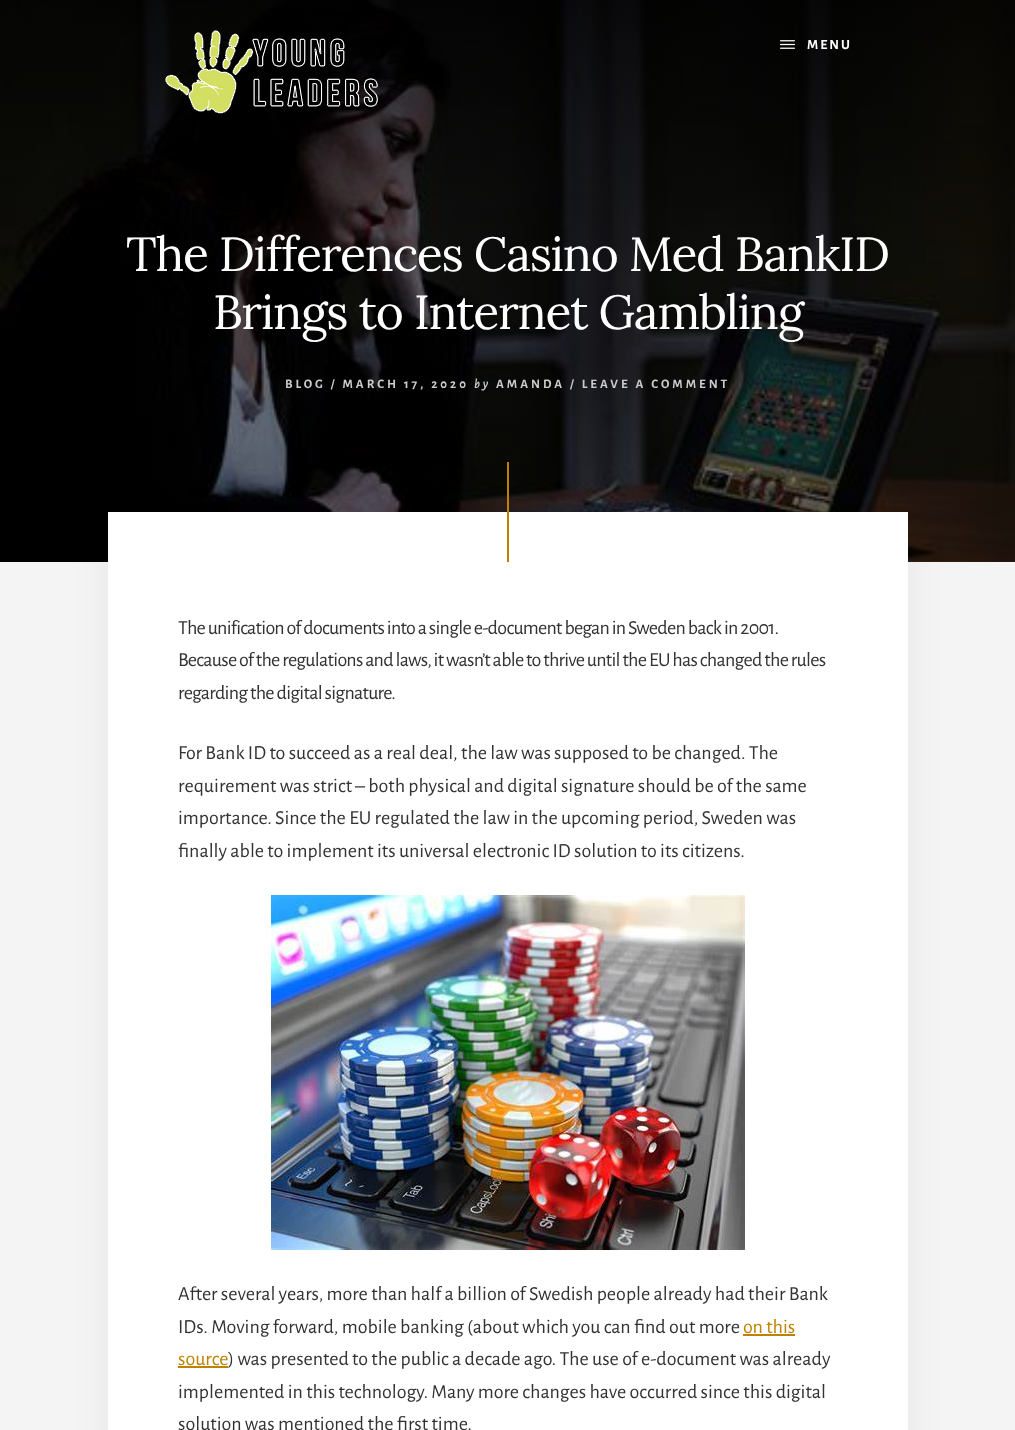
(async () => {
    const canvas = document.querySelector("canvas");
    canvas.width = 1015;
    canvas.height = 1430;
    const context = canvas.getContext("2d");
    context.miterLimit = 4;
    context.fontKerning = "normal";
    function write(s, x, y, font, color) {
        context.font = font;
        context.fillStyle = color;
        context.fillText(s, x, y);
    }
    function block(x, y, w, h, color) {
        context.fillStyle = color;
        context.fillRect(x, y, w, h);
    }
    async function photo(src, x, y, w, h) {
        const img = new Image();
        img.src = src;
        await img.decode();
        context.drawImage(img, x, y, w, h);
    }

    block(0, 0, 1015, 1430, "rgb(244, 244, 244)");
    await photo("media/1.png", 0, 0, 1015, 562);
    await photo("media/2.png", 165, 30, 213, 84);
    await photo("media/3.png", 780, 40, 15, 9);
    context.letterSpacing = "2px";
    write("MENU", 807, 49, "bold 14px Alegreya Sans", "rgb(255, 255, 255)");
    context.letterSpacing = "-1.25px";
    write("The Differences Casino Med BankID", 126, 271, "48px Lora", "rgb(255, 255, 255)");
    write("Brings to Internet Gambling", 213, 329, "48px Lora", "rgb(255, 255, 255)");
    context.letterSpacing = "3px";
    write("BLOG / MARCH 17, 2020", 285, 388, "bold 13px Alegreya Sans", "rgb(204, 204, 204)");
    write("by", 474, 388, "italic bold 13px Alegreya Sans", "rgb(204, 204, 204)");
    write("AMANDA / LEAVE A COMMENT", 496, 388, "bold 13px Alegreya Sans", "rgb(204, 204, 204)");
    context.fillStyle = "rgba(0, 0, 0, 0.05)";
    context.filter = "blur(20px)";
    context.beginPath();
    context.rect(108, 537, 800, 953);
    context.fill();
    context.filter = "none";
    block(108, 512, 800, 918, "rgb(255, 255, 255)");
    block(507, 462, 2, 100, "rgb(190, 129, 0)");
    context.letterSpacing = "-0.7px";
    write("The unification of documents into a single e-document began in Sweden back in 2001.", 178, 634, "20px Alegreya Sans", "rgb(51, 51, 51)");
    write("Because of the regulations and laws, it wasn’t able to thrive until the EU has changed the rules", 178, 666, "20px Alegreya Sans", "rgb(51, 51, 51)");
    write("regarding the digital signature.", 178, 699, "20px Alegreya Sans", "rgb(51, 51, 51)");
    context.letterSpacing = "0px";
    write("For Bank ID to succeed as a real deal, the law was supposed to be changed. The", 178, 759, "20px Alegreya Sans", "rgb(51, 51, 51)");
    write("requirement was strict – both physical and digital signature should be of the same", 178, 792, "20px Alegreya Sans", "rgb(51, 51, 51)");
    write("importance. Since the EU regulated the law in the upcoming period, Sweden was", 178, 824, "20px Alegreya Sans", "rgb(51, 51, 51)");
    write("finally able to implement its universal electronic ID solution to its citizens.", 178, 857, "20px Alegreya Sans", "rgb(51, 51, 51)");
    await photo("media/4.png", 271, 895, 474, 355);
    write("After several years, more than half a billion of Swedish people already had their Bank", 178, 1300, "20px Alegreya Sans", "rgb(51, 51, 51)");
    write("IDs. Moving forward, mobile banking (about which you can find out more", 178, 1333, "20px Alegreya Sans", "rgb(51, 51, 51)");
    write("on this", 743, 1333, "20px Alegreya Sans", "rgb(190, 129, 0)");
    block(743, 1334, 52, 2, "rgb(190, 129, 0)");
    write("source", 178, 1365, "20px Alegreya Sans", "rgb(190, 129, 0)");
    block(178, 1366, 50, 2, "rgb(190, 129, 0)");
    write(") was presented to the public a decade ago. The use of e-document was already", 228, 1365, "20px Alegreya Sans", "rgb(51, 51, 51)");
    write("implemented in this technology. Many more changes have occurred since this digital", 178, 1398, "20px Alegreya Sans", "rgb(51, 51, 51)");
    write("solution was mentioned the first time.", 178, 1430, "20px Alegreya Sans", "rgb(51, 51, 51)");
})();
